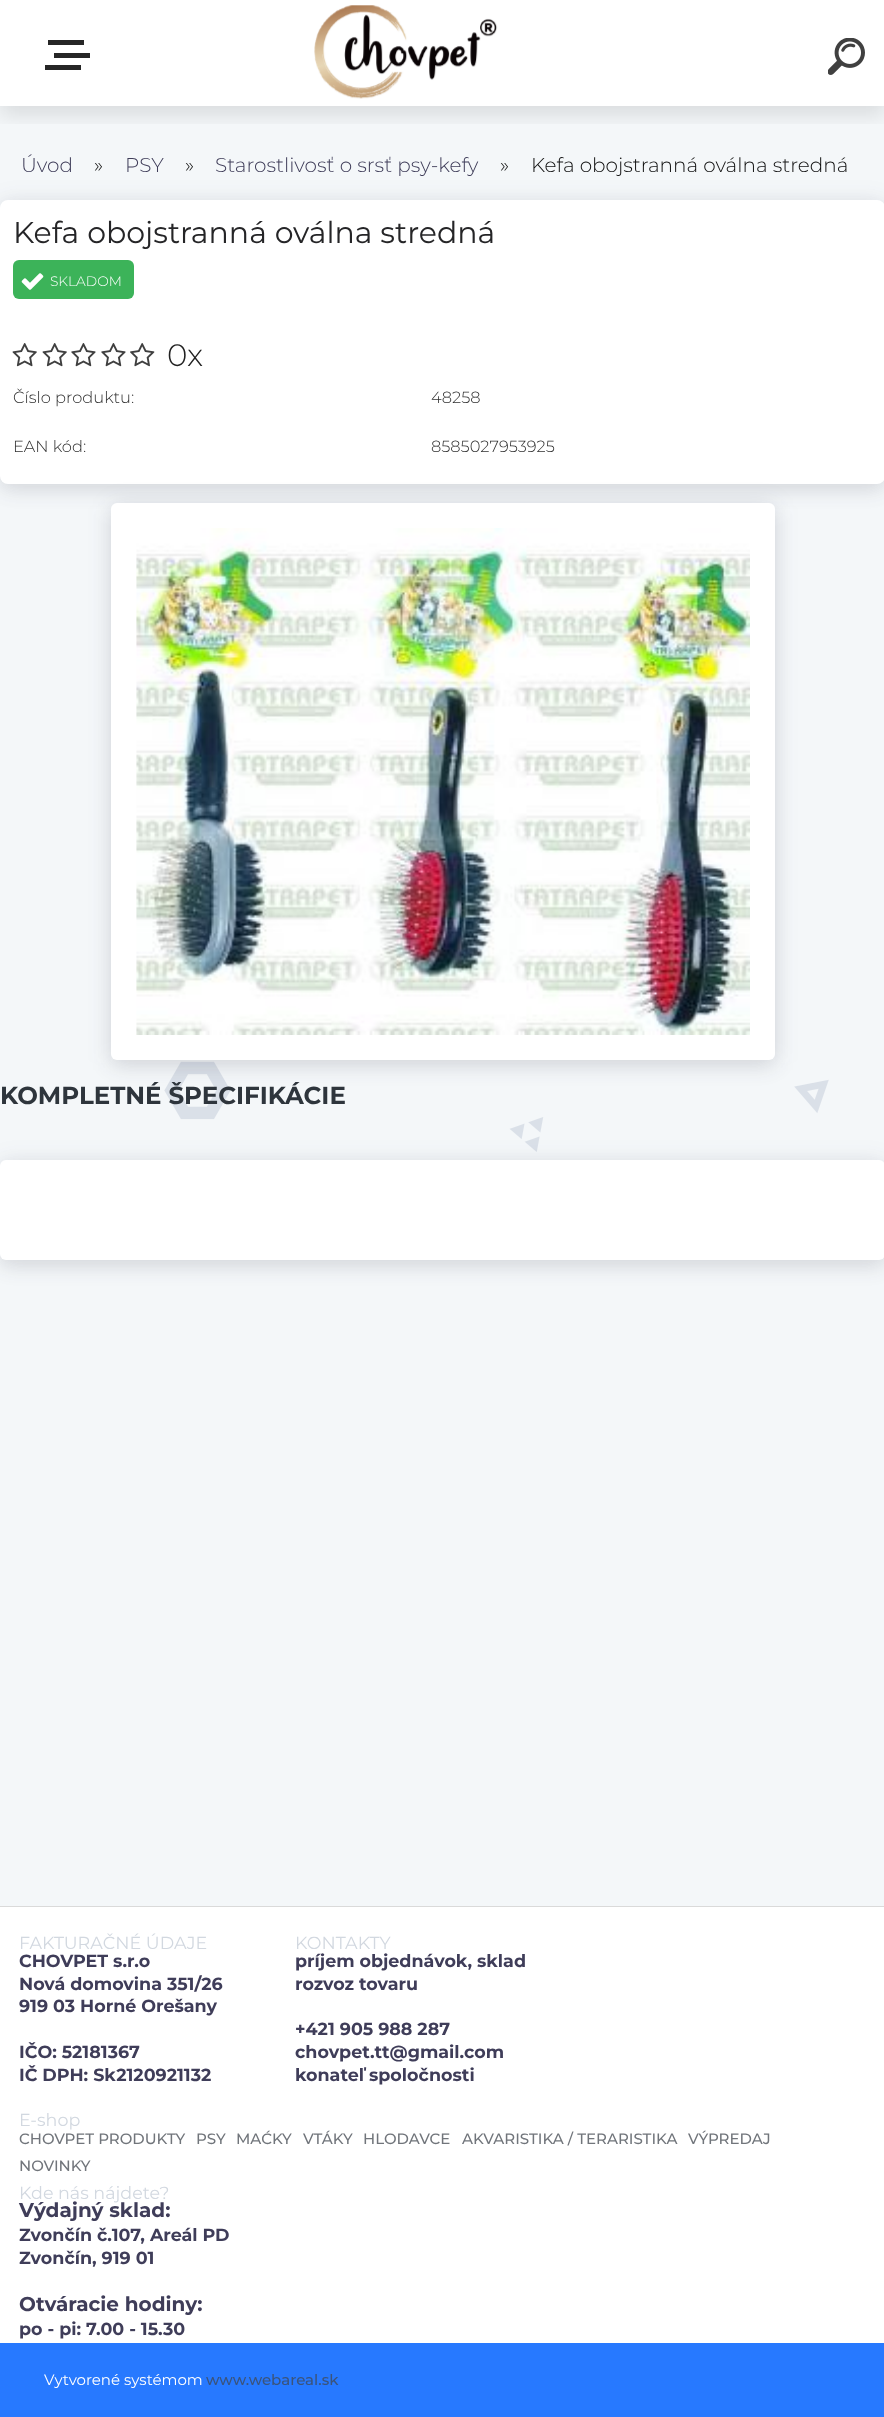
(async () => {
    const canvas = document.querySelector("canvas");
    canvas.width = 884;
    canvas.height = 2417;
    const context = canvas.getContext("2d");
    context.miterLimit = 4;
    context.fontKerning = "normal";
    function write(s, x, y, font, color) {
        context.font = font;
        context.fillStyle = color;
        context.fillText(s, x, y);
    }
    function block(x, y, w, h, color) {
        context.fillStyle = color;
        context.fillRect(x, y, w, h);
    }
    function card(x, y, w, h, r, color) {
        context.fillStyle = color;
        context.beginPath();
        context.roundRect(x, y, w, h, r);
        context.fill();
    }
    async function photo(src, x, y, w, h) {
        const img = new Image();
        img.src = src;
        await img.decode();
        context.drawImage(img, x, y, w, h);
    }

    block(0, 0, 884, 2417, "rgb(255, 255, 255)");
    block(0, 106, 884, 1800, "rgb(244, 247, 249)");
    context.save();
    context.beginPath();
    context.rect(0, 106, 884, 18);
    context.clip();
    context.fillStyle = "rgba(0, 0, 0, 0.1)";
    context.filter = "blur(10px)";
    context.beginPath();
    context.rect(0, 10, 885, 106);
    context.fill();
    context.filter = "none";
    context.restore();
    block(48, 40, 36, 5, "rgb(38, 38, 38)");
    block(54, 53, 36, 5, "rgb(38, 38, 38)");
    block(45, 65, 36, 5, "rgb(38, 38, 38)");
    await photo("media/1.png", 314, 5, 184, 94);
    await photo("media/2.png", 828, 38, 37, 37);
    write("Úvod", 21, 172, "300 20px Montserrat", "rgb(63, 61, 89)");
    write("»", 94, 172, "300 20px Montserrat", "rgb(16, 16, 16)");
    write("PSY", 125, 172, "300 20px Montserrat", "rgb(63, 61, 89)");
    write("»", 185, 172, "300 20px Montserrat", "rgb(16, 16, 16)");
    write("Starostlivosť o srsť psy-kefy", 215, 172, "300 20px Montserrat", "rgb(63, 61, 89)");
    write("»", 500, 172, "300 20px Montserrat", "rgb(16, 16, 16)");
    write("Kefa obojstranná oválna stredná", 531, 172, "300 20px Montserrat", "rgb(16, 16, 16)");
    context.fillStyle = "rgba(0, 0, 0, 0.07)";
    context.filter = "blur(9.5px)";
    context.beginPath();
    context.roundRect(0, 206, 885, 284, 8);
    context.fill();
    context.filter = "none";
    context.fillStyle = "rgba(50, 50, 93, 0.1)";
    context.filter = "blur(12.5px)";
    context.beginPath();
    context.roundRect(0, 203, 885, 283, 8);
    context.fill();
    context.filter = "none";
    card(0, 200, 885, 284, 8, "rgb(255, 255, 255)");
    write("Kefa obojstranná oválna stredná", 13, 243, "30px Montserrat", "rgb(37, 37, 39)");
    card(13, 260, 121, 39, 6, "rgb(60, 179, 89)");
    await photo("media/3.png", 21, 273, 23, 17);
    write("SKLADOM", 50, 286, "300 13.75px Montserrat", "rgb(255, 255, 255)");
    await photo("media/4.png", 12, 343, 25, 24);
    await photo("media/5.png", 42, 343, 25, 24);
    await photo("media/6.png", 71, 343, 25, 24);
    await photo("media/6.png", 101, 343, 25, 24);
    await photo("media/7.png", 130, 343, 25, 24);
    write("0x", 167, 366, "300 31px Montserrat", "rgb(33, 33, 33)");
    write("Číslo produktu:", 13, 403, "300 16.25px Montserrat", "rgb(47, 47, 47)");
    write("48258", 431, 403, "300 16.25px Montserrat", "rgb(47, 47, 47)");
    write("EAN kód:", 13, 452, "300 16.25px Montserrat", "rgb(47, 47, 47)");
    write("8585027953925", 431, 452, "300 16.25px Montserrat", "rgb(47, 47, 47)");
    await photo("media/9.png", 164, 1061, 665, 91);
    context.fillStyle = "rgba(50, 50, 93, 0.1)";
    context.filter = "blur(12.5px)";
    context.beginPath();
    context.roundRect(111, 505, 664, 558, 6);
    context.fill();
    context.filter = "none";
    context.fillStyle = "rgba(0, 0, 0, 0.07)";
    context.filter = "blur(9.5px)";
    context.beginPath();
    context.roundRect(111, 509, 664, 557, 6);
    context.fill();
    context.filter = "none";
    card(111, 503, 664, 557, 6, "rgb(255, 255, 255)");
    await photo("media/8.png", 136, 528, 614, 507);
    write("KOMPLETNÉ ŠPECIFIKÁCIE", 0, 1104, "bold 24.5px Montserrat", "rgb(46, 53, 60)");
    context.fillStyle = "rgba(0, 0, 0, 0.07)";
    context.filter = "blur(9.5px)";
    context.beginPath();
    context.roundRect(0, 1166, 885, 100, 6);
    context.fill();
    context.filter = "none";
    context.fillStyle = "rgba(50, 50, 93, 0.1)";
    context.filter = "blur(12.5px)";
    context.beginPath();
    context.roundRect(0, 1163, 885, 100, 6);
    context.fill();
    context.filter = "none";
    card(0, 1160, 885, 100, 6, "rgb(255, 255, 255)");
    block(0, 1906, 884, 1, "rgb(218, 218, 218)");
    write("FAKTURAČNÉ ÚDAJE", 19, 1949, "17.5px Montserrat", "rgb(210, 216, 224)");
    write("CHOVPET s.r.o", 19, 1967, "bold 17.5px Montserrat", "rgb(63, 61, 89)");
    write("Nová domovina 351/26", 19, 1990, "bold 17.5px Montserrat", "rgb(63, 61, 89)");
    write("919 03 Horné Orešany", 19, 2012, "bold 17.5px Montserrat", "rgb(63, 61, 89)");
    write("IČO: 52181367", 19, 2058, "bold 17.5px Montserrat", "rgb(63, 61, 89)");
    write("IČ DPH: Sk2120921132", 19, 2081, "bold 17.5px Montserrat", "rgb(63, 61, 89)");
    write("KONTAKTY", 295, 1949, "17.5px Montserrat", "rgb(210, 216, 224)");
    write("príjem objednávok, sklad", 295, 1967, "bold 17.5px Montserrat", "rgb(63, 61, 89)");
    write("rozvoz tovaru", 295, 1990, "bold 17.5px Montserrat", "rgb(63, 61, 89)");
    write("+421 905 988 287", 295, 2035, "bold 17.5px Montserrat", "rgb(63, 61, 89)");
    write("chovpet.tt@gmail.com", 295, 2058, "bold 17.5px Montserrat", "rgb(63, 61, 89)");
    write("konateľ spoločnosti", 295, 2081, "bold 17.5px Montserrat", "rgb(63, 61, 89)");
    write("E-shop", 19, 2126, "17.5px Montserrat", "rgb(210, 216, 224)");
    write("CHOVPET PRODUKTY", 19, 2144, "500 15px Montserrat", "rgb(113, 117, 123)");
    write("PSY", 196, 2144, "500 15px Montserrat", "rgb(113, 117, 123)");
    write("MAĆKY", 236, 2144, "500 15px Montserrat", "rgb(113, 117, 123)");
    write("VTÁKY", 303, 2144, "500 15px Montserrat", "rgb(113, 117, 123)");
    write("HLODAVCE", 363, 2144, "500 15px Montserrat", "rgb(113, 117, 123)");
    write("AKVARISTIKA / TERARISTIKA", 462, 2144, "500 15px Montserrat", "rgb(113, 117, 123)");
    write("VÝPREDAJ", 688, 2144, "500 15px Montserrat", "rgb(113, 117, 123)");
    write("NOVINKY", 19, 2171, "500 15px Montserrat", "rgb(113, 117, 123)");
    write("Kde nás nájdete?", 19, 2199, "17.5px Montserrat", "rgb(210, 216, 224)");
    write("Výdajný sklad:", 19, 2217, "bold 20px Montserrat", "rgb(63, 61, 89)");
    write("Zvončín č.107, Areál PD", 19, 2241, "bold 17.5px Montserrat", "rgb(63, 61, 89)");
    write("Zvončín, 919 01", 19, 2264, "bold 17.5px Montserrat", "rgb(63, 61, 89)");
    write("Otváracie hodiny:", 19, 2311, "bold 20px Montserrat", "rgb(63, 61, 89)");
    write("po - pi: 7.00 - 15.30", 19, 2335, "bold 17.5px Montserrat", "rgb(63, 61, 89)");
    block(0, 2343, 884, 74, "rgb(39, 121, 255)");
    write("Vytvorené systémom", 44, 2385, "15px Montserrat", "rgb(255, 255, 255)");
    write("www.webareal.sk", 206, 2385, "500 15px Montserrat", "rgb(59, 84, 123)");
})();
